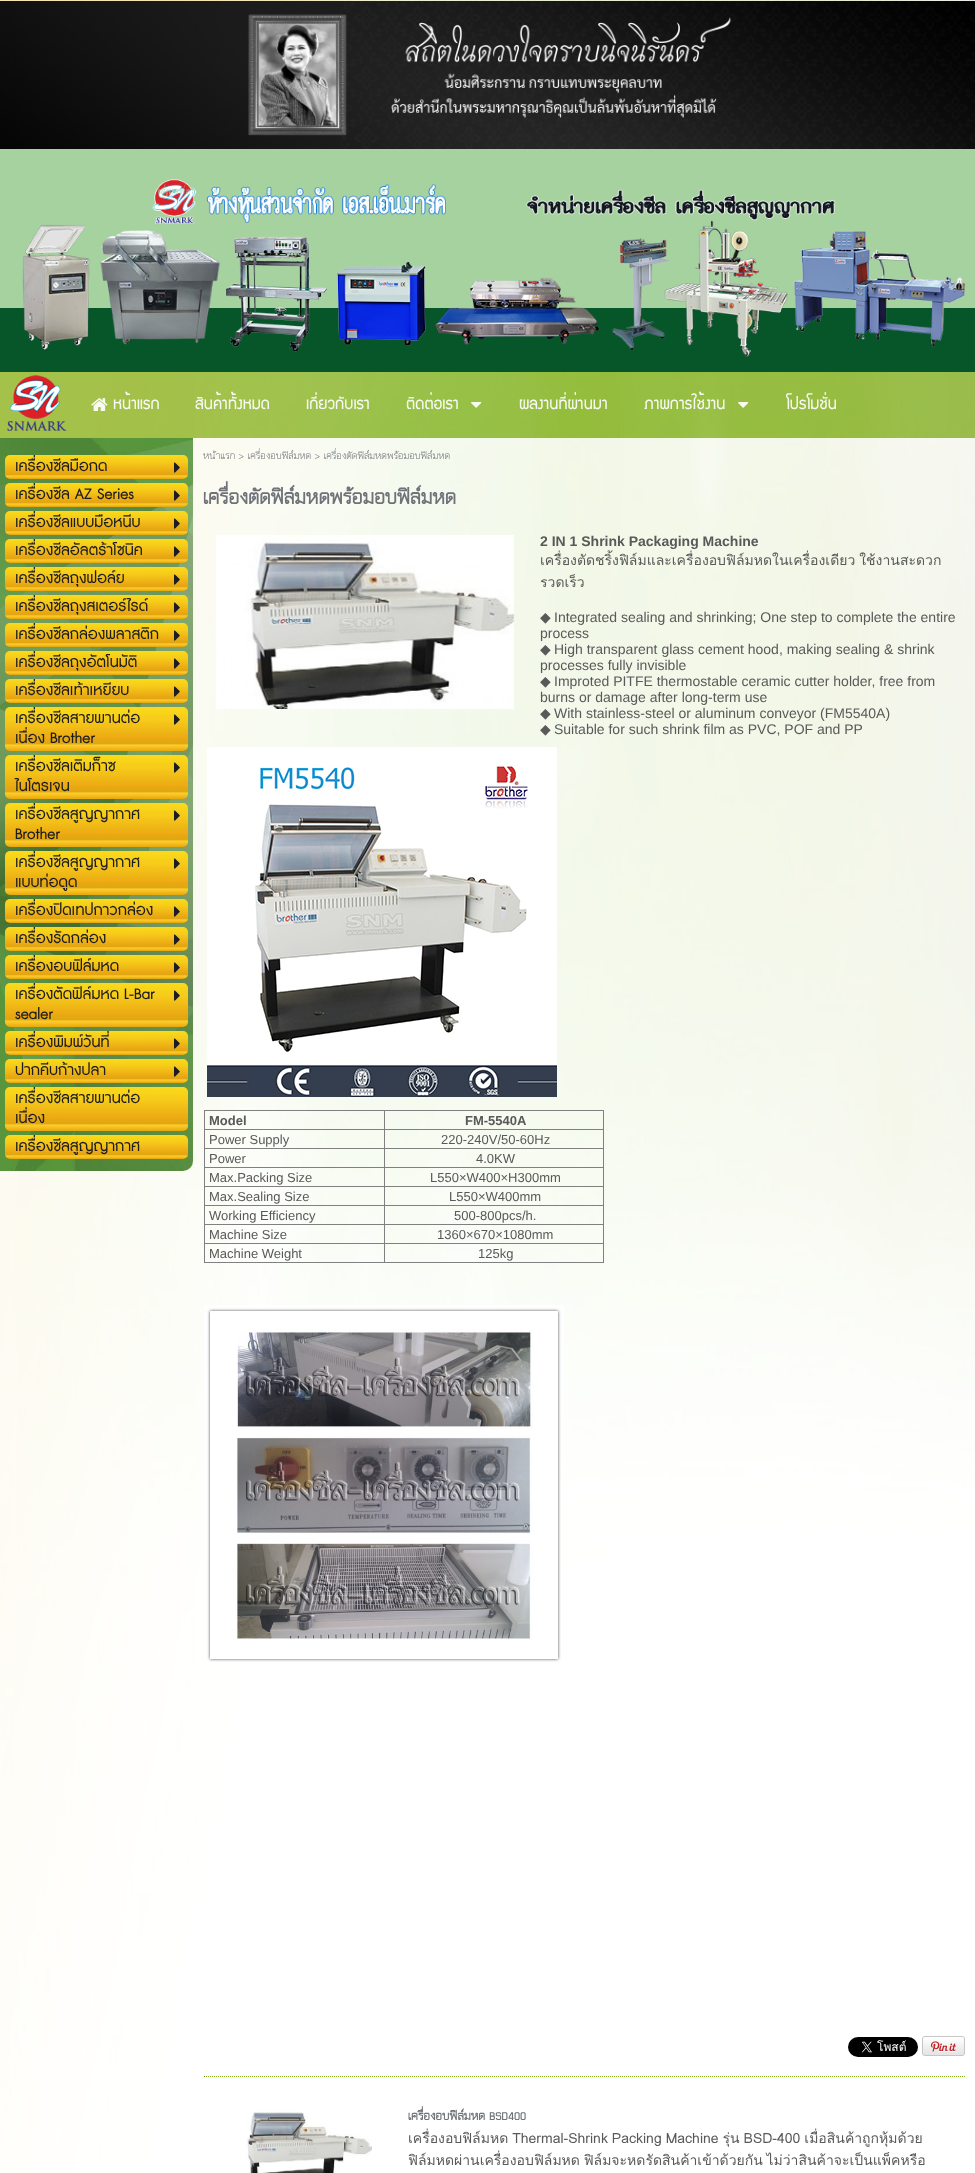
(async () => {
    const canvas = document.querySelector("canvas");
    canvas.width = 975;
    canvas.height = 2173;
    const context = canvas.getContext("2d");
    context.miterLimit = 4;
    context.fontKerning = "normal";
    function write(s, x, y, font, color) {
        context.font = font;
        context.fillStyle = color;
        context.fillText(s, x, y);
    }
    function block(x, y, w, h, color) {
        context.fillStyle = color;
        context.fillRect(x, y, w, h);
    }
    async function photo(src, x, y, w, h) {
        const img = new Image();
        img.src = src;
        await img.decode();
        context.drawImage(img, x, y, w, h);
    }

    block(0, 0, 975, 2173, "rgb(255, 255, 255)");
    await photo("media/1.png", 0, 0, 975, 2173);
    await photo("media/2.png", 0, 1, 975, 148);
    await photo("media/3.png", 0, 149, 975, 223);
    write("คสูญญากาศ เครื่", 158, 194, "14px 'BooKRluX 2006'", "rgb(158, 217, 160)");
    write("ด เ", 214, 194, "14px 'BooKRluX 2006'", "rgb(158, 217, 160)");
    write("าเ", 242, 194, "14px 'BooKRluX 2006'", "rgb(158, 217, 160)");
    write("อ", 267, 194, "14px 'BooKRluX 2006'", "rgb(158, 217, 160)");
    write("รื่อ", 317, 194, "14px 'BooKRluX 2006'", "rgb(158, 217, 160)");
    write("ตอร์", 379, 194, "14px 'BooKRluX 2006'", "rgb(158, 217, 160)");
    write("เ", 432, 194, "14px 'BooKRluX 2006'", "rgb(158, 217, 160)");
    block(0, 372, 975, 66, "rgba(130, 177, 28, 0.7)");
    await photo("media/4.png", 7, 375, 60, 56);
    await photo("media/5.png", 91, 398, 17, 13);
    write("หน้าแรก", 113, 409, "18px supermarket", "rgb(248, 250, 243)");
    write("สินค้าทั้งหมด", 195, 409, "18px supermarket", "rgb(248, 250, 243)");
    write("เกี่ยวกับเรา", 306, 409, "18px supermarket", "rgb(248, 250, 243)");
    write("ติดต่อเรา", 406, 409, "18px supermarket", "rgb(248, 250, 243)");
    await photo("media/6.png", 471, 402, 11, 6);
    write("ผลงานที่ผ่านมา", 519, 409, "18px supermarket", "rgb(248, 250, 243)");
    write("ภาพการใช้งาน", 644, 409, "18px supermarket", "rgb(248, 250, 243)");
    await photo("media/7.png", 738, 402, 11, 6);
    write("โปรโมชั่น", 786, 409, "18px supermarket", "rgb(248, 250, 243)");
    block(0, 438, 975, 1735, "rgba(255, 255, 255, 0.8)");
    write("หน้าแรก > เครื่องอบฟิล์มหด > เครื่องตัดฟิล์มหดพร้อมอบฟิล์มหด", 203, 459, "14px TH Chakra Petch", "rgb(111, 115, 121)");
    context.fillStyle = "rgb(248, 250, 193)";
    context.beginPath();
    context.roundRect(0, 438, 193, 733, [0, 0, 10, 0]);
    context.fill();
    await photo("media/8.png", 0, 438, 193, 733);
    await photo("media/9.png", 5, 455, 183, 24);
    write("เครื่องซีลมือกด", 15, 471, "20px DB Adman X", "rgb(29, 29, 31)");
    await photo("media/10.png", 174, 462, 6, 11);
    await photo("media/11.png", 5, 483, 183, 24);
    write("เครื่องซีล AZ Series", 15, 499, "20px DB Adman X", "rgb(29, 29, 31)");
    await photo("media/10.png", 174, 490, 6, 11);
    await photo("media/12.png", 5, 511, 183, 24);
    write("เครื่องซีลแบบมือหนีบ", 15, 527, "20px DB Adman X", "rgb(29, 29, 31)");
    await photo("media/10.png", 174, 518, 6, 11);
    await photo("media/13.png", 5, 539, 183, 24);
    write("เครื่องซีลอัลตร้าโซนิค", 15, 555, "20px DB Adman X", "rgb(29, 29, 31)");
    await photo("media/10.png", 174, 546, 6, 11);
    await photo("media/14.png", 5, 567, 183, 24);
    write("เครื่องซีลถุงฟอล์ย", 15, 583, "20px DB Adman X", "rgb(29, 29, 31)");
    await photo("media/10.png", 174, 574, 6, 11);
    await photo("media/15.png", 5, 595, 183, 24);
    write("เครื่องซีลถุงสเตอร์ไรด์", 15, 611, "20px DB Adman X", "rgb(29, 29, 31)");
    await photo("media/10.png", 174, 602, 6, 11);
    await photo("media/16.png", 5, 623, 183, 24);
    write("เครื่องซีลกล่องพลาสติก", 15, 639, "20px DB Adman X", "rgb(29, 29, 31)");
    await photo("media/10.png", 174, 630, 6, 11);
    await photo("media/17.png", 5, 651, 183, 24);
    write("เครื่องซีลถุงอัตโนมัติ", 15, 667, "20px DB Adman X", "rgb(29, 29, 31)");
    await photo("media/10.png", 174, 658, 6, 11);
    await photo("media/18.png", 5, 679, 183, 24);
    write("เครื่องซีลเท้าเหยียบ", 15, 695, "20px DB Adman X", "rgb(29, 29, 31)");
    await photo("media/10.png", 174, 686, 6, 11);
    await photo("media/19.png", 5, 707, 183, 44);
    write("เครื่องซีลสายพานต่อ", 15, 723, "20px DB Adman X", "rgb(29, 29, 31)");
    write("เนื่อง Brother", 15, 743, "20px DB Adman X", "rgb(29, 29, 31)");
    await photo("media/20.png", 174, 714, 6, 11);
    await photo("media/21.png", 5, 755, 183, 44);
    write("เครื่องซีลเติมก็าซ", 15, 771, "20px DB Adman X", "rgb(29, 29, 31)");
    write("ไนโตรเจน", 15, 791, "20px DB Adman X", "rgb(29, 29, 31)");
    await photo("media/20.png", 174, 762, 6, 11);
    await photo("media/22.png", 5, 803, 183, 44);
    write("เครื่องซีลสูญญากาศ", 15, 819, "20px DB Adman X", "rgb(29, 29, 31)");
    write("Brother", 15, 839, "20px DB Adman X", "rgb(29, 29, 31)");
    await photo("media/20.png", 174, 810, 6, 11);
    await photo("media/23.png", 5, 851, 183, 44);
    write("เครื่องซีลสูญญากาศ", 15, 867, "20px DB Adman X", "rgb(29, 29, 31)");
    write("แบบท่อดูด", 15, 887, "20px DB Adman X", "rgb(29, 29, 31)");
    await photo("media/20.png", 174, 858, 6, 11);
    await photo("media/24.png", 5, 899, 183, 24);
    write("เครื่องปิดเทปกาวกล่อง", 15, 915, "20px DB Adman X", "rgb(29, 29, 31)");
    await photo("media/10.png", 174, 906, 6, 11);
    await photo("media/25.png", 5, 927, 183, 24);
    write("เครื่องรัดกล่อง", 15, 943, "20px DB Adman X", "rgb(29, 29, 31)");
    await photo("media/10.png", 174, 934, 6, 11);
    await photo("media/26.png", 5, 955, 183, 24);
    write("เครื่องอบฟิล์มหด", 15, 971, "20px DB Adman X", "rgb(29, 29, 31)");
    await photo("media/10.png", 174, 962, 6, 11);
    await photo("media/27.png", 5, 983, 183, 44);
    write("เครื่องตัดฟิล์มหด L-Bar", 15, 999, "20px DB Adman X", "rgb(29, 29, 31)");
    write("sealer", 15, 1019, "20px DB Adman X", "rgb(29, 29, 31)");
    await photo("media/20.png", 174, 990, 6, 11);
    await photo("media/28.png", 5, 1031, 183, 24);
    write("เครื่องพิมพ์วันที่", 15, 1047, "20px DB Adman X", "rgb(29, 29, 31)");
    await photo("media/10.png", 174, 1038, 6, 11);
    await photo("media/29.png", 5, 1059, 183, 24);
    write("ปากคีบก้างปลา", 15, 1075, "20px DB Adman X", "rgb(29, 29, 31)");
    await photo("media/10.png", 174, 1066, 6, 11);
    await photo("media/30.png", 5, 1087, 183, 44);
    write("เครื่องซีลสายพานต่อ", 15, 1103, "20px DB Adman X", "rgb(29, 29, 31)");
    write("เนื่อง", 15, 1123, "20px DB Adman X", "rgb(29, 29, 31)");
    await photo("media/31.png", 5, 1135, 183, 24);
    write("เครื่องซีลสูญญากาศ", 15, 1151, "20px DB Adman X", "rgb(29, 29, 31)");
    write("เครื่องตัดฟิล์มหดพร้อมอบฟิล์มหด", 203, 504, "bold 28px TH Chakra Petch", "rgb(111, 115, 121)");
    write("2 IN 1 Shrink Packaging Machine", 540, 546, "bold 14px Liberation Sans", "rgb(89, 89, 89)");
    context.wordSpacing = "-0.75px";
    write("เครื่องตัดชริ้งฟิล์มและเครื่องอบฟิล์มหดในเครื่องเดียว ใช้งานสะดวก", 540, 565, "14px Loma", "rgb(89, 89, 89)");
    context.wordSpacing = "0px";
    write("รวดเร็ว", 540, 587, "14px Loma", "rgb(89, 89, 89)");
    write("◆", 540, 622, "14px DejaVu Sans", "rgb(89, 89, 89)");
    write("Integrated sealing and shrinking; One step to complete the entire", 554, 622, "14px Liberation Sans", "rgb(89, 89, 89)");
    write("process", 540, 638, "14px Liberation Sans", "rgb(89, 89, 89)");
    write("◆", 540, 654, "14px DejaVu Sans", "rgb(89, 89, 89)");
    write("High transparent glass cement hood, making sealing & shrink", 554, 654, "14px Liberation Sans", "rgb(89, 89, 89)");
    write("processes fully invisible", 540, 670, "14px Liberation Sans", "rgb(89, 89, 89)");
    write("◆", 540, 686, "14px DejaVu Sans", "rgb(89, 89, 89)");
    write("Improted PITFE thermostable ceramic cutter holder, free from", 554, 686, "14px Liberation Sans", "rgb(89, 89, 89)");
    write("burns or damage after long-term use", 540, 702, "14px Liberation Sans", "rgb(89, 89, 89)");
    write("◆", 540, 718, "14px DejaVu Sans", "rgb(89, 89, 89)");
    write("With stainless-steel or aluminum conveyor (FM5540A)", 554, 718, "14px Liberation Sans", "rgb(89, 89, 89)");
    write("◆", 540, 734, "14px DejaVu Sans", "rgb(89, 89, 89)");
    write("Suitable for such shrink film as PVC, POF and PP", 554, 734, "14px Liberation Sans", "rgb(89, 89, 89)");
    await photo("media/32.png", 207, 747, 350, 350);
    block(204, 1110, 400, 1, "rgb(128, 128, 128)");
    block(603, 1110, 1, 153, "rgb(128, 128, 128)");
    block(204, 1262, 400, 1, "rgb(128, 128, 128)");
    block(204, 1110, 1, 153, "rgb(128, 128, 128)");
    write("Model", 209, 1125, "bold 13px Liberation Sans", "rgb(89, 89, 89)");
    block(384, 1129, 220, 1, "rgb(128, 128, 128)");
    block(384, 1148, 220, 1, "rgb(128, 128, 128)");
    block(384, 1167, 220, 1, "rgb(128, 128, 128)");
    block(384, 1186, 220, 1, "rgb(128, 128, 128)");
    block(384, 1205, 220, 1, "rgb(128, 128, 128)");
    block(384, 1224, 220, 1, "rgb(128, 128, 128)");
    block(384, 1243, 220, 1, "rgb(128, 128, 128)");
    block(384, 1243, 1, 20, "rgb(128, 128, 128)");
    block(204, 1243, 181, 1, "rgb(128, 128, 128)");
    block(384, 1224, 1, 20, "rgb(128, 128, 128)");
    block(204, 1224, 181, 1, "rgb(128, 128, 128)");
    block(384, 1205, 1, 20, "rgb(128, 128, 128)");
    block(204, 1205, 181, 1, "rgb(128, 128, 128)");
    block(384, 1186, 1, 20, "rgb(128, 128, 128)");
    block(204, 1186, 181, 1, "rgb(128, 128, 128)");
    block(384, 1167, 1, 20, "rgb(128, 128, 128)");
    block(204, 1167, 181, 1, "rgb(128, 128, 128)");
    block(384, 1148, 1, 20, "rgb(128, 128, 128)");
    block(204, 1148, 181, 1, "rgb(128, 128, 128)");
    block(384, 1129, 1, 20, "rgb(128, 128, 128)");
    block(204, 1129, 181, 1, "rgb(128, 128, 128)");
    block(384, 1110, 1, 20, "rgb(128, 128, 128)");
    write("FM-5540A", 465, 1125, "bold 13px Liberation Sans", "rgb(89, 89, 89)");
    write("Power Supply", 209, 1144, "13px Liberation Sans", "rgb(89, 89, 89)");
    write("220-240V/50-60Hz", 441, 1144, "13px Liberation Sans", "rgb(89, 89, 89)");
    write("Power", 209, 1163, "13px Liberation Sans", "rgb(89, 89, 89)");
    write("4.0KW", 476, 1163, "13px Liberation Sans", "rgb(89, 89, 89)");
    write("Max.Packing Size", 209, 1182, "13px Liberation Sans", "rgb(89, 89, 89)");
    write("L550×W400×H300mm", 430, 1182, "13px Liberation Sans", "rgb(89, 89, 89)");
    write("Max.Sealing Size", 209, 1201, "13px Liberation Sans", "rgb(89, 89, 89)");
    write("L550×W400mm", 449, 1201, "13px Liberation Sans", "rgb(89, 89, 89)");
    write("Working Efficiency", 209, 1220, "13px Liberation Sans", "rgb(89, 89, 89)");
    write("500-800pcs/h.", 454, 1220, "13px Liberation Sans", "rgb(89, 89, 89)");
    write("Machine Size", 209, 1239, "13px Liberation Sans", "rgb(89, 89, 89)");
    write("1360×670×1080mm", 437, 1239, "13px Liberation Sans", "rgb(89, 89, 89)");
    write("Machine Weight", 209, 1258, "13px Liberation Sans", "rgb(89, 89, 89)");
    write("125kg", 478, 1258, "13px Liberation Sans", "rgb(89, 89, 89)");
    await photo("media/33.png", 204, 1305, 360, 357);
    await photo("media/34.png", 216, 535, 298, 174);
    await photo("media/35.png", 848, 2037, 70, 20);
    await photo("media/36.png", 922, 2036, 43, 20);
    context.beginPath();
    context.moveTo(204, 2076.5);
    context.lineTo(965, 2076.5);
    context.strokeStyle = "rgb(130, 177, 28)";
    context.setLineDash([1, 1]);
    context.stroke();
    block(204, 2076, 1, 1, "rgb(87, 117, 18)");
    await photo("media/37.png", 246, 2109, 126, 64);
    write("เครื่องอบฟิล์มหด BSD400", 408, 2120, "bold 17px TH Chakra Petch", "rgb(111, 115, 121)");
    context.wordSpacing = "-0.75px";
    write("เครื่องอบฟิล์มหด Thermal-Shrink Packing Machine รุ่น BSD-400 เมื่อสินค้าถูกหุ้มด้วย", 408, 2143, "14px Loma", "rgb(89, 89, 89)");
    context.save();
    context.beginPath();
    context.rect(408, 2097, 537, 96);
    context.clip();
    context.wordSpacing = "-1px";
    write("ฟิล์มหดผ่านเครื่องอบฟิล์มหด ฟิล์มจะหดรัดสินค้าเข้าด้วยกัน ไม่ว่าสินค้าจะเป็นแพ็คหรือ", 408, 2165, "14px Loma", "rgb(89, 89, 89)");
    context.restore();
})();
